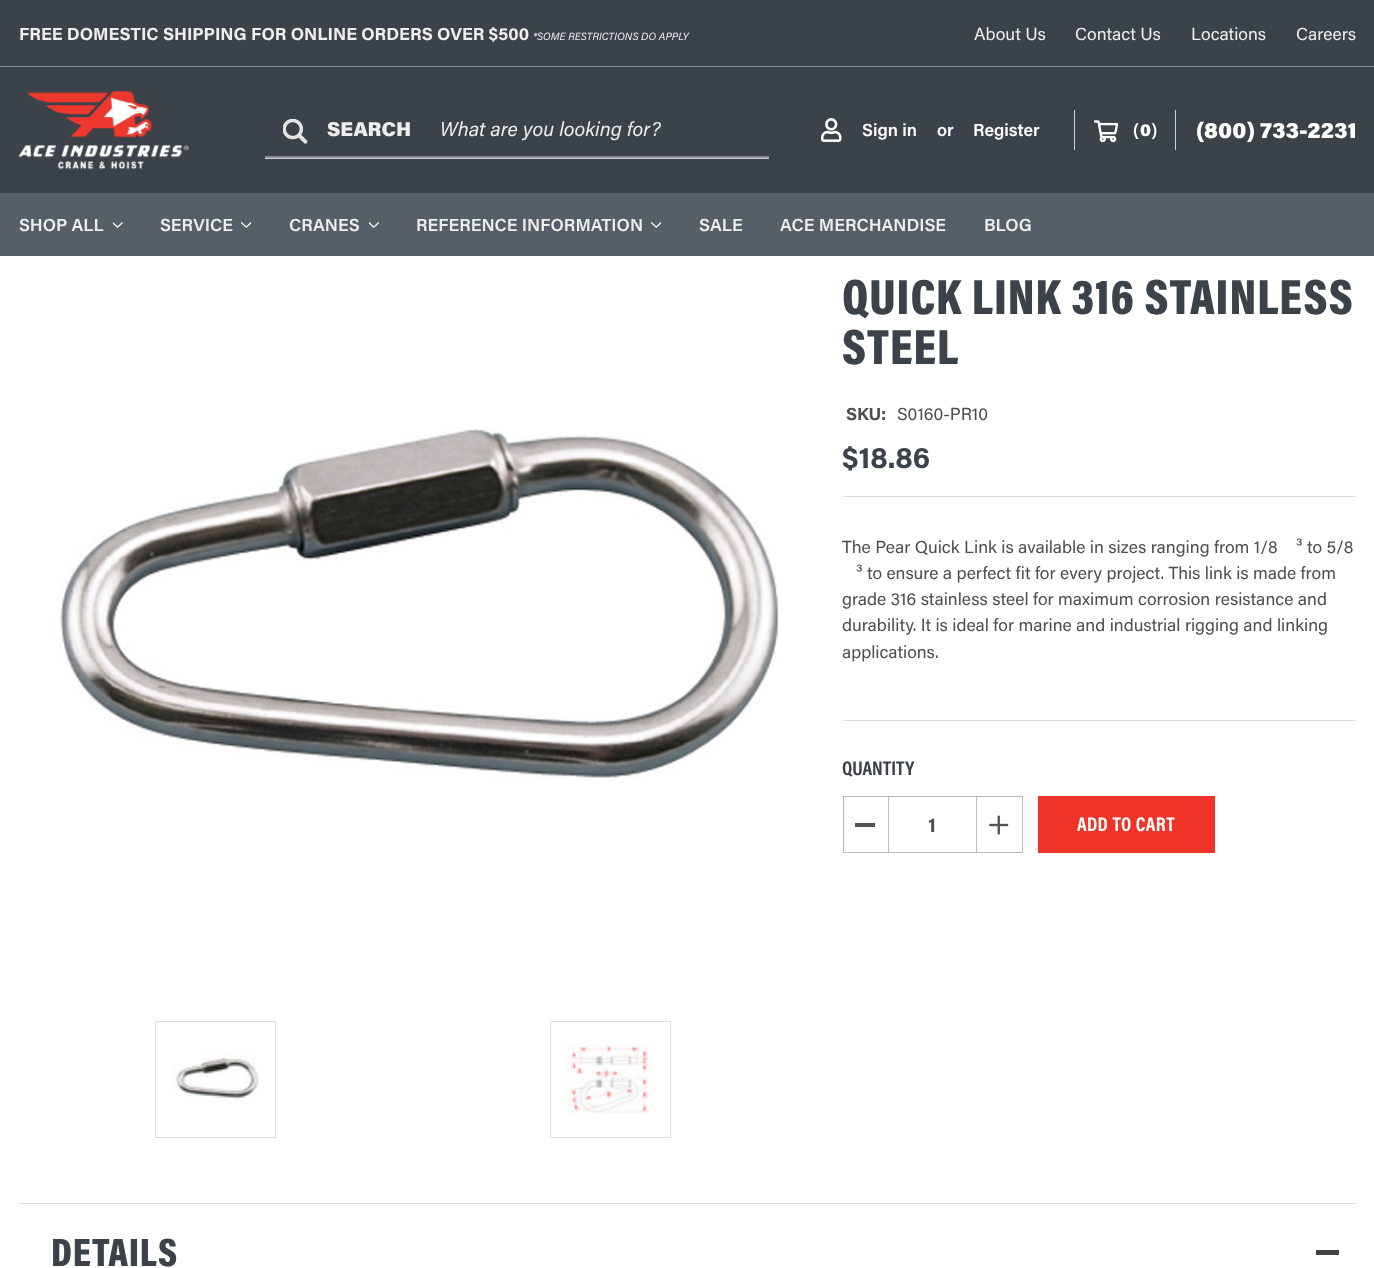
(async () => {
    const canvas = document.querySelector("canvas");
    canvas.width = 1374;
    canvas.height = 1268;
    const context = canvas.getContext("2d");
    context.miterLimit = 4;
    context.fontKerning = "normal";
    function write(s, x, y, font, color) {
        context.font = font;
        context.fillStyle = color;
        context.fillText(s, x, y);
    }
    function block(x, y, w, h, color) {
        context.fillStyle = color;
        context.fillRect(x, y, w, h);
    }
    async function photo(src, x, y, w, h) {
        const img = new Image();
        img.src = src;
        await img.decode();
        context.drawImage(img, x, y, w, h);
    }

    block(0, 0, 1374, 1268, "rgb(255, 255, 255)");
    block(0, 0, 1374, 193, "rgb(60, 66, 73)");
    block(0, 66, 1374, 1, "rgb(137, 142, 149)");
    write("FREE DOMESTIC SHIPPING FOR ONLINE ORDERS OVER $500", 19, 40, "bold 17.5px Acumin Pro", "rgb(238, 238, 238)");
    write("*SOME RESTRICTIONS DO APPLY", 533, 40, "italic 10.5px Acumin Pro", "rgb(238, 238, 238)");
    write("About Us", 974, 40, "17.5px Acumin Pro", "rgb(238, 238, 238)");
    write("Contact Us", 1075, 40, "17.5px Acumin Pro", "rgb(238, 238, 238)");
    write("Locations", 1191, 40, "17.5px Acumin Pro", "rgb(238, 238, 238)");
    write("Careers", 1296, 40, "17.5px Acumin Pro", "rgb(238, 238, 238)");
    await photo("media/1.png", 18, 91, 171, 79);
    await photo("media/2.png", 283, 119, 25, 25);
    write("SEARCH", 327, 136, "900 20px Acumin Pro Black", "rgb(238, 238, 238)");
    block(265, 156, 504, 2, "rgb(137, 142, 149)");
    write("What are you looking for?", 440, 136, "italic 20px Acumin Pro", "rgb(238, 238, 238)");
    block(265, 158, 504, 1, "rgb(210, 210, 210)");
    await photo("media/3.png", 821, 118, 21, 24);
    write("Sign in", 862, 136, "600 17.5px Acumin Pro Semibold", "rgb(255, 255, 255)");
    write("or", 937, 136, "600 17.5px Acumin Pro Semibold", "rgb(255, 255, 255)");
    write("Register", 973, 136, "600 17.5px Acumin Pro Semibold", "rgb(255, 255, 255)");
    block(1074, 110, 1, 40, "rgb(210, 210, 210)");
    await photo("media/4.png", 1094, 120, 25, 23);
    write("(", 1133, 136, "600 17.5px Acumin Pro Semibold", "rgb(255, 255, 255)");
    write("0", 1140, 136, "900 17.5px Acumin Pro Black", "rgb(255, 255, 255)");
    write(")", 1151, 136, "600 17.5px Acumin Pro Semibold", "rgb(255, 255, 255)");
    block(1175, 110, 1, 40, "rgb(210, 210, 210)");
    write("(800) 733-2231", 1196, 138, "900 22.5px Acumin Pro Black", "rgb(255, 255, 255)");
    block(0, 193, 1374, 63, "rgb(86, 94, 104)");
    write("SHOP ALL", 19, 231, "600 17.5px Acumin Pro Semibold", "rgb(238, 238, 238)");
    await photo("media/5.png", 113, 222, 10, 6);
    write("SERVICE", 160, 231, "600 17.5px Acumin Pro Semibold", "rgb(238, 238, 238)");
    await photo("media/6.png", 241, 222, 10, 6);
    write("CRANES", 289, 231, "600 17.5px Acumin Pro Semibold", "rgb(238, 238, 238)");
    await photo("media/7.png", 369, 222, 10, 6);
    write("REFERENCE INFORMATION", 416, 231, "600 17.5px Acumin Pro Semibold", "rgb(238, 238, 238)");
    await photo("media/6.png", 651, 222, 10, 6);
    write("SALE", 699, 231, "600 17.5px Acumin Pro Semibold", "rgb(238, 238, 238)");
    write("ACE MERCHANDISE", 780, 231, "600 17.5px Acumin Pro Semibold", "rgb(238, 238, 238)");
    write("BLOG", 984, 231, "600 17.5px Acumin Pro Semibold", "rgb(238, 238, 238)");
    await photo("media/8.png", 60, 427, 719, 353);
    context.strokeStyle = "rgb(221, 221, 221)";
    context.strokeRect(155.5, 1021.5, 120, 116);
    await photo("media/9.png", 172, 1050, 87, 54);
    context.strokeRect(550.5, 1021.5, 120, 116);
    await photo("media/10.png", 566, 1044, 85, 70);
    block(843, 496, 513, 1, "rgb(221, 221, 221)");
    context.letterSpacing = "1px";
    write("QUICK LINK 316 STAINLESS", 842, 314, "900 50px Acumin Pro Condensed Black", "rgb(60, 66, 73)");
    write("STEEL", 842, 364, "900 50px Acumin Pro Condensed Black", "rgb(60, 66, 73)");
    context.letterSpacing = "0px";
    write("SKU:", 846, 420, "bold 17.5px Acumin Pro", "rgb(78, 78, 78)");
    write("S0160-PR10", 897, 420, "17.5px Acumin Pro", "rgb(78, 78, 78)");
    write("$18.86", 842, 468, "bold 30px Acumin Pro", "rgb(60, 66, 73)");
    block(843, 720, 513, 1, "rgb(221, 221, 221)");
    write("The Pear Quick Link is available in sizes ranging from 1/8", 842, 553, "17.5px Acumin Pro", "rgb(78, 78, 78)");
    write("³ to 5/8", 1296, 553, "17.5px Acumin Pro", "rgb(78, 78, 78)");
    write("³ to ensure a perfect fit for every project. This link is made from", 856, 579, "17.5px Acumin Pro", "rgb(78, 78, 78)");
    write("grade 316 stainless steel for maximum corrosion resistance and", 842, 605, "17.5px Acumin Pro", "rgb(78, 78, 78)");
    write("durability. It is ideal for marine and industrial rigging and linking", 842, 631, "17.5px Acumin Pro", "rgb(78, 78, 78)");
    write("applications.", 842, 658, "17.5px Acumin Pro", "rgb(78, 78, 78)");
    write("QUANTITY", 842, 775, "bold 20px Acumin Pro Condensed", "rgb(60, 66, 73)");
    context.strokeStyle = "rgb(186, 186, 186)";
    context.strokeRect(888.5, 796.5, 89, 56);
    context.strokeRect(843.5, 796.5, 45, 56);
    block(855, 823, 20, 4, "rgb(82, 83, 83)");
    write("1", 928, 832, "bold 20px Acumin Pro", "rgb(78, 78, 78)");
    block(977, 797, 1, 55, "rgb(255, 255, 255)");
    context.strokeRect(976.5, 796.5, 46, 56);
    await photo("media/11.png", 989, 815, 20, 20);
    block(1038, 796, 177, 57, "rgb(238, 52, 40)");
    context.letterSpacing = "0.4px";
    write("ADD TO CART", 1077, 831, "bold 20px Acumin Pro Condensed", "rgb(255, 255, 255)");
    block(19, 1203, 1337, 1, "rgb(221, 221, 221)");
    context.letterSpacing = "0.75px";
    write("DETAILS", 51, 1266, "900 40px Acumin Pro Condensed Black", "rgb(60, 66, 73)");
    block(1316, 1250, 23, 5, "rgb(66, 66, 66)");
})();
